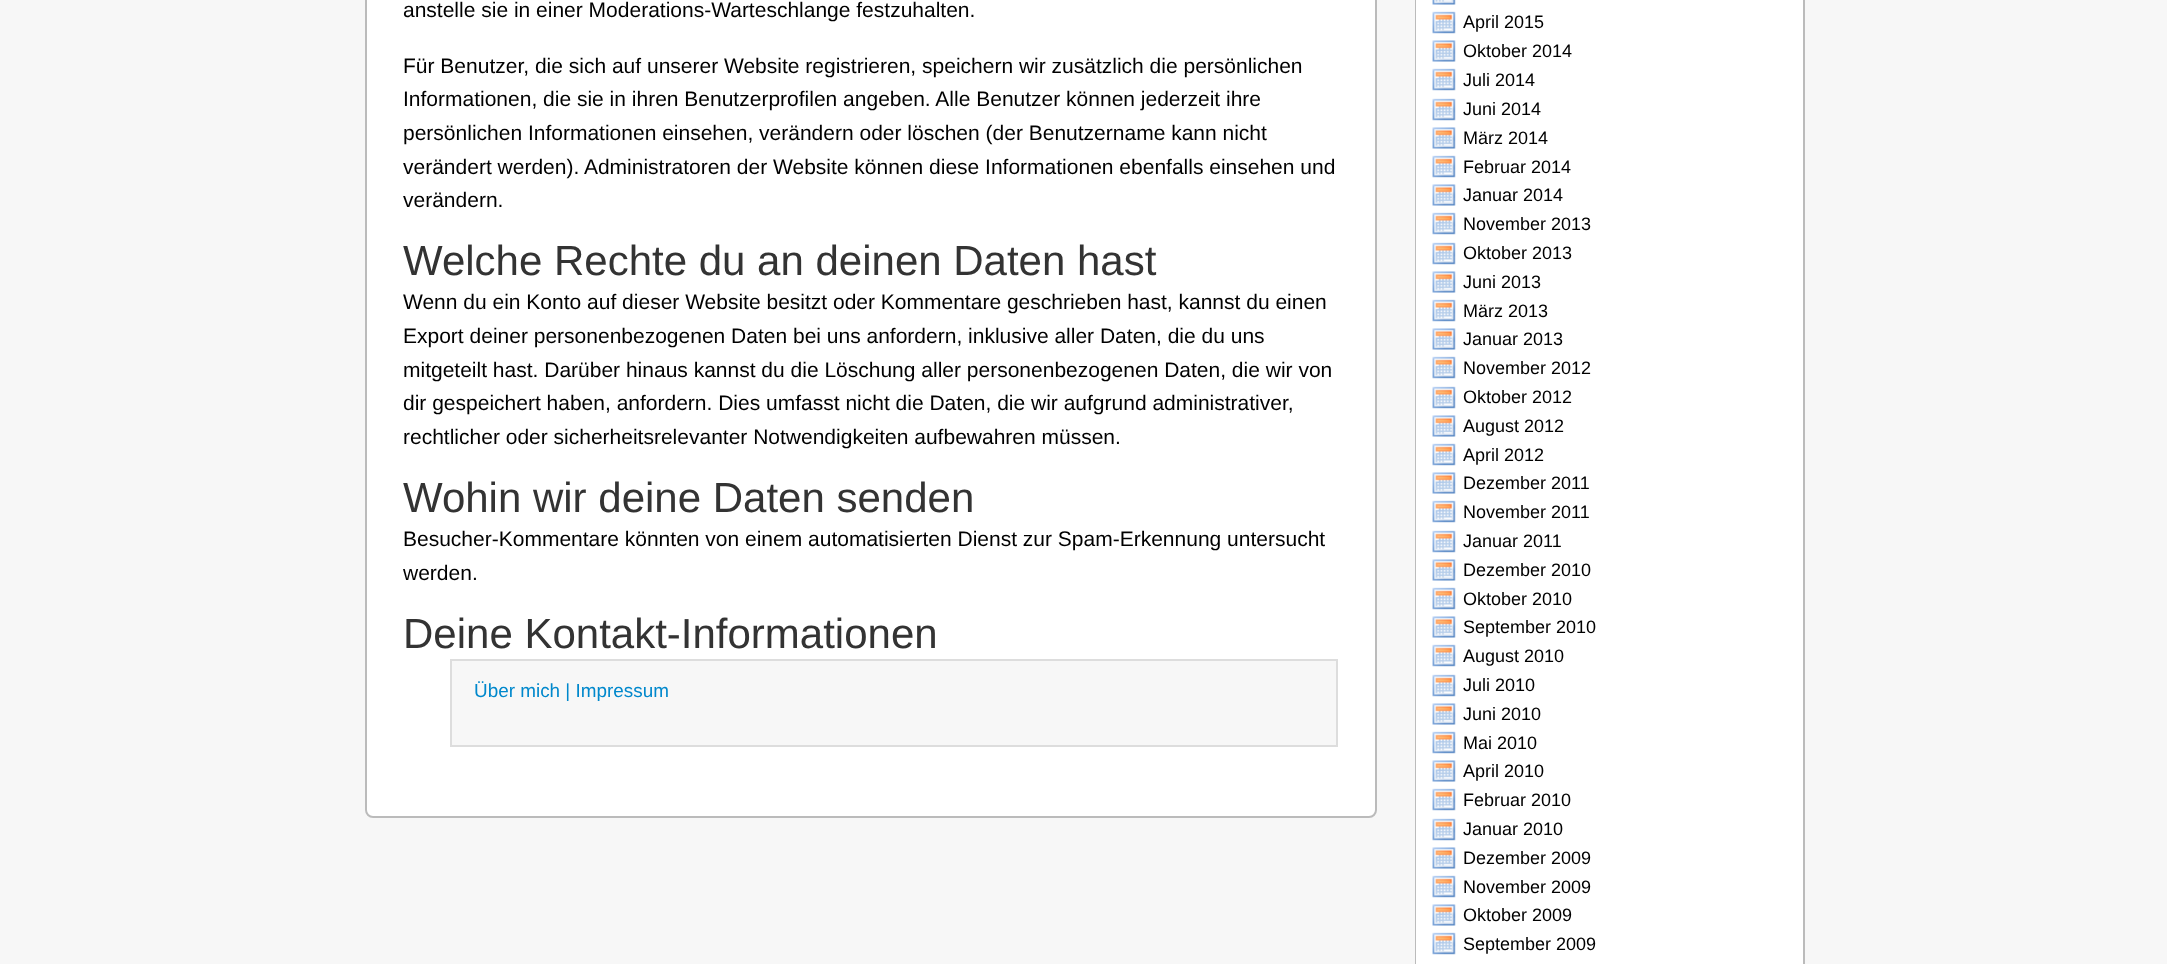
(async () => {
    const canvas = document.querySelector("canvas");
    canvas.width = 2167;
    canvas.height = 964;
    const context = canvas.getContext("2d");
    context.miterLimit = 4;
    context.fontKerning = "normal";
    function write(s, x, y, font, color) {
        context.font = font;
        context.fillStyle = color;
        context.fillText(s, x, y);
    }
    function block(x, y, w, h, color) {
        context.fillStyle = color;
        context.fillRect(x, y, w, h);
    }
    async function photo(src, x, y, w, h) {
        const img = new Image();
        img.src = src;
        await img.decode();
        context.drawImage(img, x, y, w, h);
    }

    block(0, 0, 2167, 964, "rgb(247, 247, 247)");
    context.fillStyle = "rgb(255, 255, 255)";
    context.beginPath();
    context.roundRect(366, -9, 1010, 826, 7);
    context.fill();
    context.strokeStyle = "rgb(187, 187, 187)";
    context.lineWidth = 2;
    context.stroke();
    write("anstelle sie in einer Moderations-Warteschlange festzuhalten.", 403, 17, "21px Liberation Sans", "rgb(0, 0, 0)");
    write("Für Benutzer, die sich auf unserer Website registrieren, speichern wir zusätzlich die persönlichen", 403, 73, "21px Liberation Sans", "rgb(0, 0, 0)");
    write("Informationen, die sie in ihren Benutzerprofilen angeben. Alle Benutzer können jederzeit ihre", 403, 106, "21px Liberation Sans", "rgb(0, 0, 0)");
    write("persönlichen Informationen einsehen, verändern oder löschen (der Benutzername kann nicht", 403, 140, "21px Liberation Sans", "rgb(0, 0, 0)");
    write("verändert werden). Administratoren der Website können diese Informationen ebenfalls einsehen und", 403, 174, "21px Liberation Sans", "rgb(0, 0, 0)");
    write("verändern.", 403, 207, "21px Liberation Sans", "rgb(0, 0, 0)");
    write("Welche Rechte du an deinen Daten hast", 403, 275, "42px Liberation Sans", "rgb(51, 51, 51)");
    write("Wenn du ein Konto auf dieser Website besitzt oder Kommentare geschrieben hast, kannst du einen", 403, 309, "21px Liberation Sans", "rgb(0, 0, 0)");
    write("Export deiner personenbezogenen Daten bei uns anfordern, inklusive aller Daten, die du uns", 403, 343, "21px Liberation Sans", "rgb(0, 0, 0)");
    write("mitgeteilt hast. Darüber hinaus kannst du die Löschung aller personenbezogenen Daten, die wir von", 403, 377, "21px Liberation Sans", "rgb(0, 0, 0)");
    write("dir gespeichert haben, anfordern. Dies umfasst nicht die Daten, die wir aufgrund administrativer,", 403, 410, "21px Liberation Sans", "rgb(0, 0, 0)");
    write("rechtlicher oder sicherheitsrelevanter Notwendigkeiten aufbewahren müssen.", 403, 444, "21px Liberation Sans", "rgb(0, 0, 0)");
    write("Wohin wir deine Daten senden", 403, 512, "42px Liberation Sans", "rgb(51, 51, 51)");
    write("Besucher-Kommentare könnten von einem automatisierten Dienst zur Spam-Erkennung untersucht", 403, 546, "21px Liberation Sans", "rgb(0, 0, 0)");
    write("werden.", 403, 580, "21px Liberation Sans", "rgb(0, 0, 0)");
    write("Deine Kontakt-Informationen", 403, 648, "42px Liberation Sans", "rgb(51, 51, 51)");
    context.fillStyle = "rgb(247, 247, 247)";
    context.beginPath();
    context.rect(451, 660, 886, 86);
    context.fill();
    context.strokeStyle = "rgb(221, 221, 221)";
    context.stroke();
    write("Über mich | Impressum", 474, 697, "18.9px Liberation Sans", "rgb(0, 136, 204)");
    context.strokeStyle = "rgb(187, 187, 187)";
    context.strokeRect(1416, -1, 388, 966);
    block(1416, 0, 387, 964, "rgb(255, 255, 255)");
    await photo("media/1.png", 1432, 0, 24, 5);
    await photo("media/2.png", 1432, 11, 24, 23);
    write("April 2015", 1463, 28, "18px Liberation Sans", "rgb(0, 0, 0)");
    await photo("media/3.png", 1432, 40, 24, 22);
    write("Oktober 2014", 1463, 57, "18px Liberation Sans", "rgb(0, 0, 0)");
    await photo("media/2.png", 1432, 68, 24, 23);
    write("Juli 2014", 1463, 86, "18px Liberation Sans", "rgb(0, 0, 0)");
    await photo("media/2.png", 1432, 98, 24, 23);
    write("Juni 2014", 1463, 115, "18px Liberation Sans", "rgb(0, 0, 0)");
    await photo("media/3.png", 1432, 127, 24, 22);
    write("März 2014", 1463, 144, "18px Liberation Sans", "rgb(0, 0, 0)");
    await photo("media/2.png", 1432, 155, 24, 23);
    write("Februar 2014", 1463, 173, "18px Liberation Sans", "rgb(0, 0, 0)");
    await photo("media/3.png", 1432, 184, 24, 22);
    write("Januar 2014", 1463, 201, "18px Liberation Sans", "rgb(0, 0, 0)");
    await photo("media/2.png", 1432, 212, 24, 23);
    write("November 2013", 1463, 230, "18px Liberation Sans", "rgb(0, 0, 0)");
    await photo("media/2.png", 1432, 242, 24, 23);
    write("Oktober 2013", 1463, 259, "18px Liberation Sans", "rgb(0, 0, 0)");
    await photo("media/3.png", 1432, 271, 24, 22);
    write("Juni 2013", 1463, 288, "18px Liberation Sans", "rgb(0, 0, 0)");
    await photo("media/2.png", 1432, 299, 24, 23);
    write("März 2013", 1463, 317, "18px Liberation Sans", "rgb(0, 0, 0)");
    await photo("media/3.png", 1432, 328, 24, 22);
    write("Januar 2013", 1463, 345, "18px Liberation Sans", "rgb(0, 0, 0)");
    await photo("media/2.png", 1432, 356, 24, 23);
    write("November 2012", 1463, 374, "18px Liberation Sans", "rgb(0, 0, 0)");
    await photo("media/2.png", 1432, 386, 24, 23);
    write("Oktober 2012", 1463, 403, "18px Liberation Sans", "rgb(0, 0, 0)");
    await photo("media/3.png", 1432, 415, 24, 22);
    write("August 2012", 1463, 432, "18px Liberation Sans", "rgb(0, 0, 0)");
    await photo("media/2.png", 1432, 443, 24, 23);
    write("April 2012", 1463, 461, "18px Liberation Sans", "rgb(0, 0, 0)");
    await photo("media/3.png", 1432, 472, 24, 22);
    write("Dezember 2011", 1463, 489, "18px Liberation Sans", "rgb(0, 0, 0)");
    await photo("media/2.png", 1432, 500, 24, 23);
    write("November 2011", 1463, 518, "18px Liberation Sans", "rgb(0, 0, 0)");
    await photo("media/2.png", 1432, 530, 24, 23);
    write("Januar 2011", 1463, 547, "18px Liberation Sans", "rgb(0, 0, 0)");
    await photo("media/3.png", 1432, 559, 24, 22);
    write("Dezember 2010", 1463, 576, "18px Liberation Sans", "rgb(0, 0, 0)");
    await photo("media/2.png", 1432, 587, 24, 23);
    write("Oktober 2010", 1463, 605, "18px Liberation Sans", "rgb(0, 0, 0)");
    await photo("media/3.png", 1432, 616, 24, 22);
    write("September 2010", 1463, 633, "18px Liberation Sans", "rgb(0, 0, 0)");
    await photo("media/2.png", 1432, 644, 24, 23);
    write("August 2010", 1463, 662, "18px Liberation Sans", "rgb(0, 0, 0)");
    await photo("media/2.png", 1432, 674, 24, 23);
    write("Juli 2010", 1463, 691, "18px Liberation Sans", "rgb(0, 0, 0)");
    await photo("media/3.png", 1432, 703, 24, 22);
    write("Juni 2010", 1463, 720, "18px Liberation Sans", "rgb(0, 0, 0)");
    await photo("media/2.png", 1432, 731, 24, 23);
    write("Mai 2010", 1463, 749, "18px Liberation Sans", "rgb(0, 0, 0)");
    await photo("media/3.png", 1432, 760, 24, 22);
    write("April 2010", 1463, 777, "18px Liberation Sans", "rgb(0, 0, 0)");
    await photo("media/2.png", 1432, 788, 24, 23);
    write("Februar 2010", 1463, 806, "18px Liberation Sans", "rgb(0, 0, 0)");
    await photo("media/2.png", 1432, 818, 24, 23);
    write("Januar 2010", 1463, 835, "18px Liberation Sans", "rgb(0, 0, 0)");
    await photo("media/3.png", 1432, 847, 24, 22);
    write("Dezember 2009", 1463, 864, "18px Liberation Sans", "rgb(0, 0, 0)");
    await photo("media/2.png", 1432, 875, 24, 23);
    write("November 2009", 1463, 893, "18px Liberation Sans", "rgb(0, 0, 0)");
    await photo("media/3.png", 1432, 904, 24, 22);
    write("Oktober 2009", 1463, 921, "18px Liberation Sans", "rgb(0, 0, 0)");
    await photo("media/2.png", 1432, 932, 24, 23);
    write("September 2009", 1463, 950, "18px Liberation Sans", "rgb(0, 0, 0)");
})();
